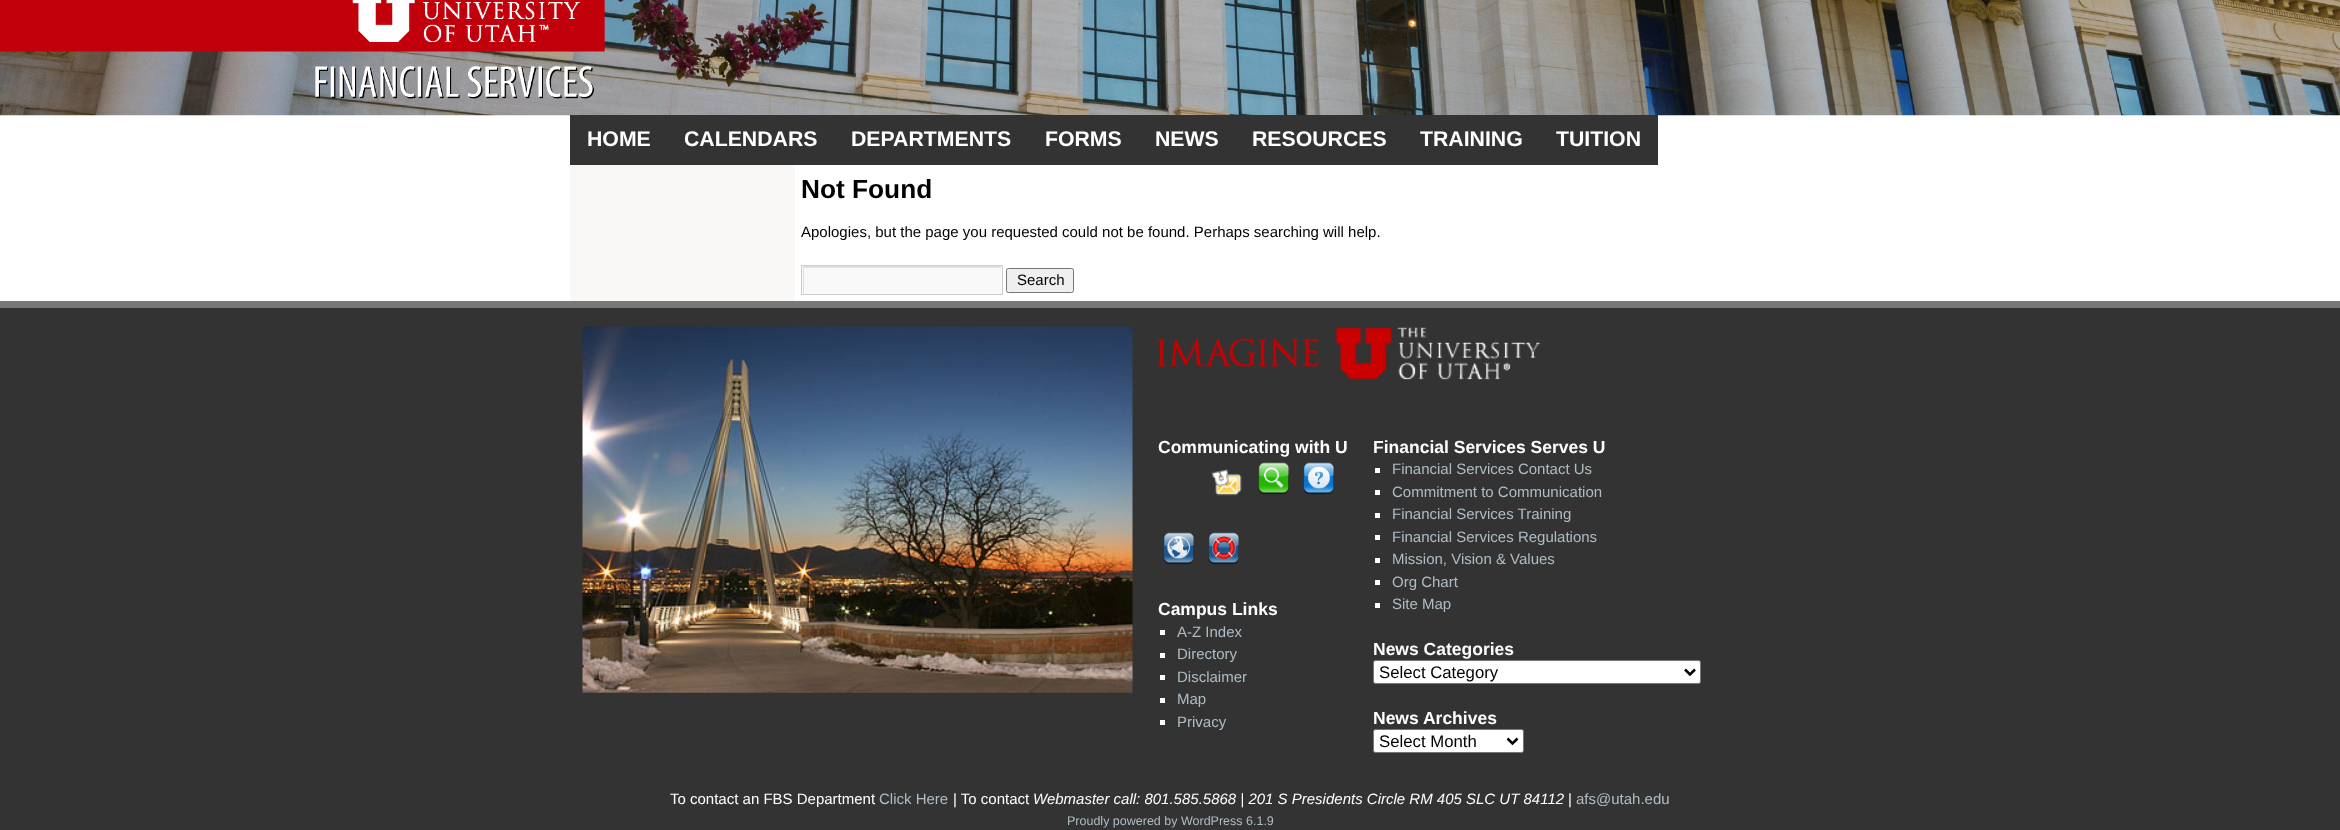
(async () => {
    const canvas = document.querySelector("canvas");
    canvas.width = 2340;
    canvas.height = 830;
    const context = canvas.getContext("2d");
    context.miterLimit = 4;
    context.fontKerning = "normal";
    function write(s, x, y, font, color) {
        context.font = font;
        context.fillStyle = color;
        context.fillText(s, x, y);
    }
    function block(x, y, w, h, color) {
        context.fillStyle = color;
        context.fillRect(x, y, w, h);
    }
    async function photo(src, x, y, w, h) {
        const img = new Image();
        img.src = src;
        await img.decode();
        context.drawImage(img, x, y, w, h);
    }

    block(0, 0, 2340, 830, "rgb(255, 255, 255)");
    await photo("media/1.png", 0, 0, 2340, 116);
    block(570, 115, 1088, 50, "rgb(51, 51, 51)");
    write("HOME", 587, 146, "bold 21.25px Liberation Sans", "rgb(255, 255, 255)");
    write("CALENDARS", 684, 146, "bold 21.25px Liberation Sans", "rgb(255, 255, 255)");
    write("DEPARTMENTS", 851, 146, "bold 21.25px Liberation Sans", "rgb(255, 255, 255)");
    write("FORMS", 1045, 146, "bold 21.25px Liberation Sans", "rgb(255, 255, 255)");
    write("NEWS", 1155, 146, "bold 21.25px Liberation Sans", "rgb(255, 255, 255)");
    write("RESOURCES", 1252, 146, "bold 21.25px Liberation Sans", "rgb(255, 255, 255)");
    write("TRAINING", 1420, 146, "bold 21.25px Liberation Sans", "rgb(255, 255, 255)");
    write("TUITION", 1556, 146, "bold 21.25px Liberation Sans", "rgb(255, 255, 255)");
    block(570, 165, 225, 136, "rgb(249, 248, 246)");
    write("Not Found", 801, 198, "bold 26.25px Liberation Sans", "rgb(0, 0, 0)");
    write("Apologies, but the page you requested could not be found. Perhaps searching will help.", 801, 237, "15px Liberation Sans", "rgb(0, 0, 0)");
    block(802, 266, 200, 28, "rgb(249, 249, 249)");
    context.save();
    context.beginPath();
    context.rect(803, 266, 198, 28);
    context.clip();
    context.fillStyle = "rgb(224, 224, 224)";
    context.beginPath();
    context.moveTo(679, 142);
    context.lineTo(1125, 142);
    context.lineTo(1125, 418);
    context.lineTo(679, 418);
    context.closePath();
    context.moveTo(804, 268);
    context.lineTo(1002, 268);
    context.lineTo(1002, 295);
    context.lineTo(804, 295);
    context.closePath();
    context.fill("evenodd");
    context.restore();
    context.strokeStyle = "rgb(204, 204, 204)";
    context.strokeRect(801.5, 265.5, 201, 29);
    context.fillStyle = "rgb(239, 239, 239)";
    context.beginPath();
    context.roundRect(1006.5, 268.5, 67, 24, 2);
    context.fill();
    context.strokeStyle = "rgb(118, 118, 118)";
    context.stroke();
    write("Search", 1017, 285, "15px Liberation Sans", "rgb(0, 0, 0)");
    block(0, 308, 2340, 522, "rgb(51, 51, 51)");
    block(0, 301, 2340, 7, "rgb(119, 121, 124)");
    await photo("media/2.png", 582, 326, 551, 367);
    await photo("media/3.png", 1157, 327, 384, 53);
    write("Communicating with U", 1158, 453, "bold 17.5px Liberation Sans", "rgb(255, 255, 255)");
    await photo("media/4.png", 1211, 469, 31, 27);
    await photo("media/5.png", 1258, 462, 31, 33);
    await photo("media/6.png", 1303, 462, 31, 33);
    await photo("media/7.png", 1163, 532, 31, 33);
    await photo("media/8.png", 1208, 532, 31, 33);
    write("Campus Links", 1158, 615, "bold 17.5px Liberation Sans", "rgb(255, 255, 255)");
    block(1160, 630, 5, 5, "rgb(255, 255, 255)");
    write("A-Z Index", 1177, 637, "15px Liberation Sans", "rgb(174, 189, 197)");
    block(1160, 653, 5, 5, "rgb(255, 255, 255)");
    write("Directory", 1177, 659, "15px Liberation Sans", "rgb(174, 189, 197)");
    block(1160, 675, 5, 5, "rgb(255, 255, 255)");
    write("Disclaimer", 1177, 682, "15px Liberation Sans", "rgb(174, 189, 197)");
    block(1160, 698, 5, 5, "rgb(255, 255, 255)");
    write("Map", 1177, 704, "15px Liberation Sans", "rgb(174, 189, 197)");
    block(1160, 720, 5, 5, "rgb(255, 255, 255)");
    write("Privacy", 1177, 727, "15px Liberation Sans", "rgb(174, 189, 197)");
    write("Financial Services Serves U", 1373, 453, "bold 17.5px Liberation Sans", "rgb(255, 255, 255)");
    block(1375, 468, 5, 5, "rgb(255, 255, 255)");
    write("Financial Services Contact Us", 1392, 474, "15px Liberation Sans", "rgb(174, 189, 197)");
    block(1375, 490, 5, 5, "rgb(255, 255, 255)");
    write("Commitment to Communication", 1392, 497, "15px Liberation Sans", "rgb(174, 189, 197)");
    block(1375, 513, 5, 5, "rgb(255, 255, 255)");
    write("Financial Services Training", 1392, 519, "15px Liberation Sans", "rgb(174, 189, 197)");
    block(1375, 535, 5, 5, "rgb(255, 255, 255)");
    write("Financial Services Regulations", 1392, 542, "15px Liberation Sans", "rgb(174, 189, 197)");
    block(1375, 558, 5, 5, "rgb(255, 255, 255)");
    write("Mission, Vision & Values", 1392, 564, "15px Liberation Sans", "rgb(174, 189, 197)");
    block(1375, 580, 5, 5, "rgb(255, 255, 255)");
    write("Org Chart", 1392, 587, "15px Liberation Sans", "rgb(174, 189, 197)");
    block(1375, 603, 5, 5, "rgb(255, 255, 255)");
    write("Site Map", 1392, 609, "15px Liberation Sans", "rgb(174, 189, 197)");
    write("News Categories", 1373, 655, "bold 17.5px Liberation Sans", "rgb(255, 255, 255)");
    context.beginPath();
    context.roundRect(1373.5, 660.5, 327, 23, 2);
    context.fill();
    context.stroke();
    context.beginPath();
    context.moveTo(1685, 669.5);
    context.lineTo(1690, 674.5);
    context.lineTo(1695, 669.5);
    context.strokeStyle = "rgb(0, 0, 0)";
    context.lineWidth = 2.5;
    context.stroke();
    write("Select Category", 1379, 678, "16.75px Liberation Sans", "rgb(0, 0, 0)");
    write("News Archives", 1373, 724, "bold 17.5px Liberation Sans", "rgb(255, 255, 255)");
    context.beginPath();
    context.roundRect(1373.5, 729.5, 150, 23, 2);
    context.fill();
    context.strokeStyle = "rgb(118, 118, 118)";
    context.lineWidth = 1;
    context.stroke();
    context.beginPath();
    context.moveTo(1507.5, 738.5);
    context.lineTo(1512.5, 743.5);
    context.lineTo(1517.5, 738.5);
    context.strokeStyle = "rgb(0, 0, 0)";
    context.lineWidth = 2.5;
    context.stroke();
    write("Select Month", 1379, 747, "16.75px Liberation Sans", "rgb(0, 0, 0)");
    write("To contact an FBS Department", 670, 804, "15px Liberation Sans", "rgb(255, 255, 255)");
    write("Click Here", 879, 804, "15px Liberation Sans", "rgb(174, 189, 197)");
    write("| To contact", 953, 804, "15px Liberation Sans", "rgb(255, 255, 255)");
    write("Webmaster call: 801.585.5868 | 201 S Presidents Circle RM 405 SLC UT 84112", 1033, 804, "italic 15px Liberation Sans", "rgb(255, 255, 255)");
    write("|", 1568, 804, "15px Liberation Sans", "rgb(255, 255, 255)");
    write("afs@utah.edu", 1576, 804, "15px Liberation Sans", "rgb(174, 189, 197)");
    write("Proudly powered by WordPress 6.1.9", 1067, 825, "12.5px Liberation Sans", "rgb(174, 189, 197)");
})();
